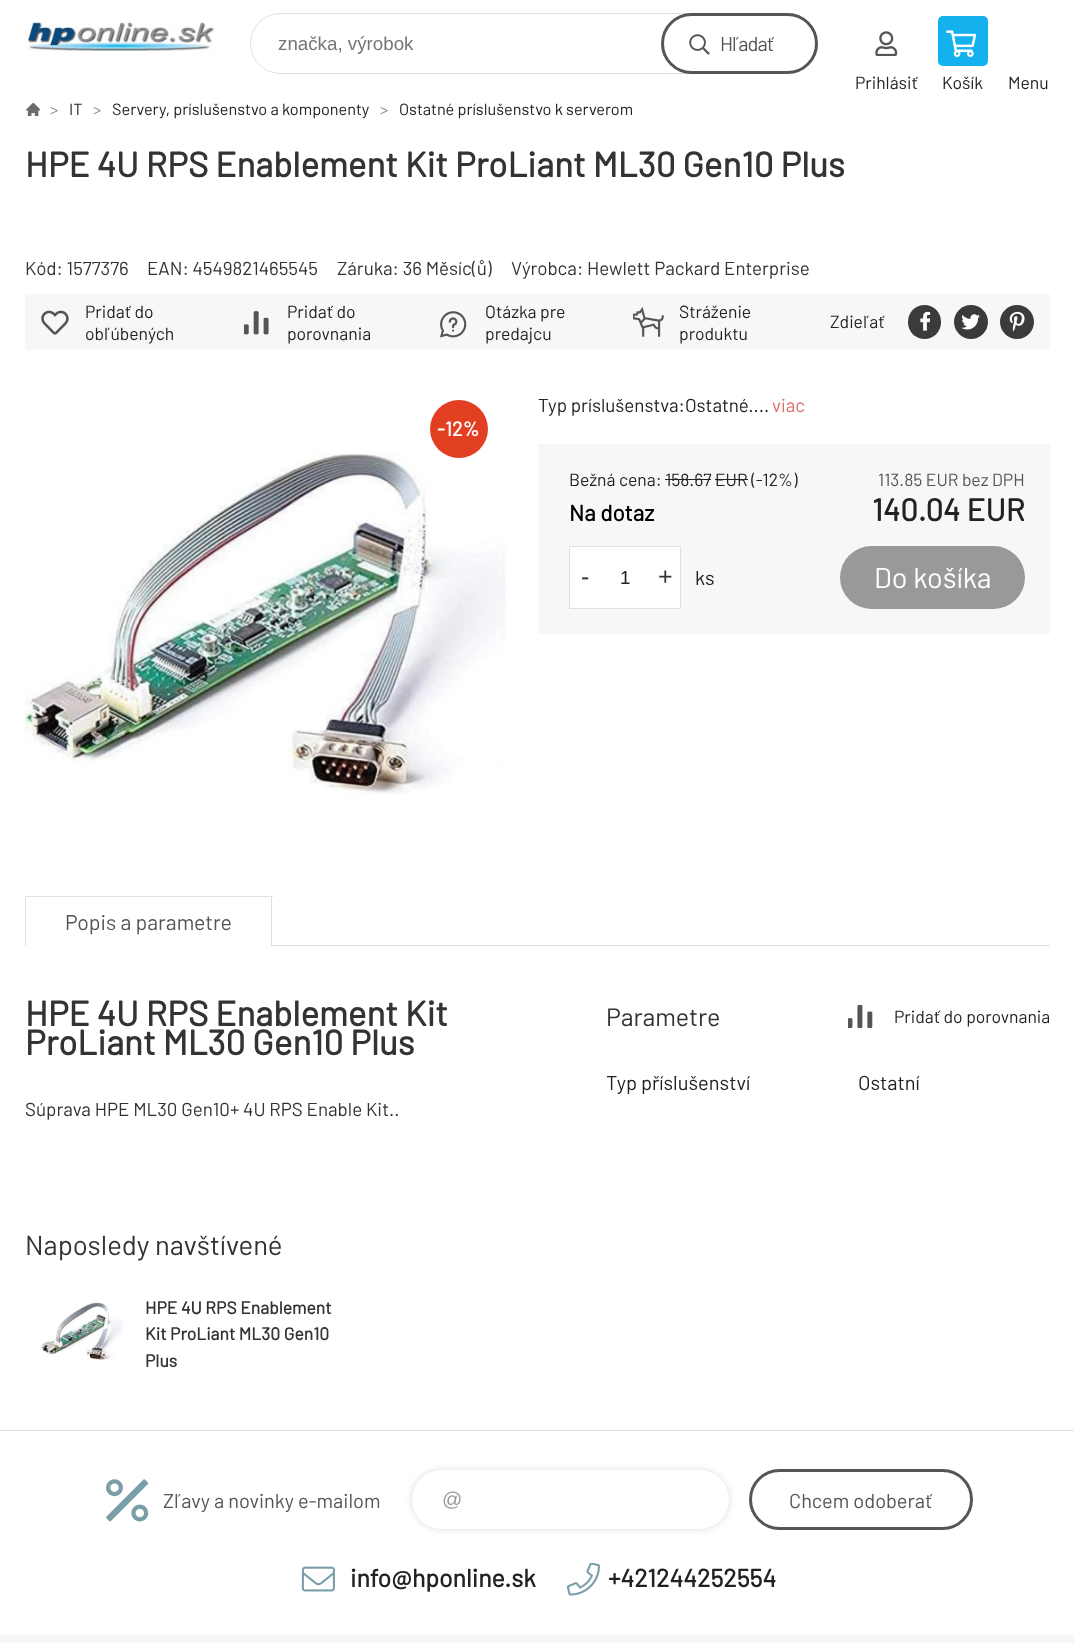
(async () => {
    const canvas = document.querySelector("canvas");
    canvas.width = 1074;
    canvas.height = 1643;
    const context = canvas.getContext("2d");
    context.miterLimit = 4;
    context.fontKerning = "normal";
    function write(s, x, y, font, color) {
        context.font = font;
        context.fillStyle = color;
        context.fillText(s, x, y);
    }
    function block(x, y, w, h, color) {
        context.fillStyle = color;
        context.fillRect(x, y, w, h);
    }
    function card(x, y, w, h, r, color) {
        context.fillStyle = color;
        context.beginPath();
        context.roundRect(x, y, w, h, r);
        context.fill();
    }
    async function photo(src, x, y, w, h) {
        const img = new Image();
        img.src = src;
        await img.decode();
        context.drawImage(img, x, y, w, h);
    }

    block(0, 0, 1074, 1643, "rgb(255, 255, 255)");
    await photo("media/1.png", 25, 21, 190, 31);
    context.beginPath();
    context.roundRect(250.5, 13.5, 567, 60, 30);
    context.strokeStyle = "rgb(224, 224, 224)";
    context.stroke();
    write("značka, výrobok", 278, 50, "18.75px Liberation Sans", "rgb(117, 117, 117)");
    await photo("media/2.png", 689, 34, 21, 21);
    context.beginPath();
    context.roundRect(662.5, 14.5, 154, 58, 29);
    context.strokeStyle = "rgb(85, 85, 85)";
    context.lineWidth = 3;
    context.stroke();
    context.letterSpacing = "-1px";
    write("Hľadať", 720, 51, "20px Barlow", "rgb(85, 85, 85)");
    await photo("media/3.png", 875, 31, 23, 25);
    context.letterSpacing = "0px";
    write("Prihlásiť", 855, 89, "17.5px Barlow", "rgb(34, 34, 34)");
    card(938, 16, 50, 50, 5, "rgb(20, 177, 239)");
    await photo("media/4.png", 946, 30, 30, 27);
    write("Košík", 942, 89, "17.5px Barlow", "rgb(34, 34, 34)");
    write("Menu", 1008, 89, "17.5px Barlow", "rgb(34, 34, 34)");
    await photo("media/5.png", 25, 103, 15, 13);
    write(">", 50, 115, "16.25px Barlow", "rgb(136, 136, 136)");
    write("IT", 69, 115, "16.25px Barlow", "rgb(34, 34, 34)");
    write(">", 93, 115, "16.25px Barlow", "rgb(136, 136, 136)");
    write("Servery, príslušenstvo a komponenty", 112, 115, "16.25px Barlow", "rgb(34, 34, 34)");
    write(">", 380, 115, "16.25px Barlow", "rgb(136, 136, 136)");
    write("Ostatné príslušenstvo k serverom", 399, 115, "16.25px Barlow", "rgb(34, 34, 34)");
    write("HPE 4U RPS Enablement Kit ProLiant ML30 Gen10 Plus", 25, 177, "bold 35px Barlow", "rgb(51, 51, 51)");
    write("Kód: 1577376", 25, 275, "18.75px Barlow", "rgb(51, 51, 51)");
    write("EAN: 4549821465545", 147, 275, "18.75px Barlow", "rgb(51, 51, 51)");
    write("Záruka: 36 Měsíc(ů)", 337, 275, "18.75px Barlow", "rgb(51, 51, 51)");
    write("Výrobca: Hewlett Packard Enterprise", 511, 275, "18.75px Barlow", "rgb(51, 51, 51)");
    block(25, 294, 1025, 56, "rgb(247, 247, 247)");
    await photo("media/6.png", 41, 310, 28, 25);
    write("Pridať do", 85, 318, "17.5px Barlow", "rgb(34, 34, 34)");
    write("obľúbených", 85, 340, "17.5px Barlow", "rgb(34, 34, 34)");
    await photo("media/7.png", 244, 311, 25, 24);
    write("Pridať do", 287, 318, "17.5px Barlow", "rgb(34, 34, 34)");
    write("porovnania", 287, 340, "17.5px Barlow", "rgb(34, 34, 34)");
    await photo("media/8.png", 440, 311, 27, 27);
    write("Otázka pre", 485, 318, "17.5px Barlow", "rgb(34, 34, 34)");
    write("predajcu", 485, 340, "17.5px Barlow", "rgb(34, 34, 34)");
    await photo("media/9.png", 633, 307, 31, 30);
    write("Stráženie", 679, 318, "17.5px Barlow", "rgb(34, 34, 34)");
    write("produktu", 679, 340, "17.5px Barlow", "rgb(34, 34, 34)");
    write("Zdieľať", 830, 328, "17.5px Barlow", "rgb(34, 34, 34)");
    card(908, 305, 33, 34, 16.5, "rgb(59, 59, 59)");
    await photo("media/10.png", 920, 311, 11, 20);
    context.beginPath();
    context.arc(971, 322, 17, 0, Math.PI * 2);
    context.fill();
    await photo("media/11.png", 961, 314, 19, 16);
    context.beginPath();
    context.arc(1017, 322, 17, 0, Math.PI * 2);
    context.fill();
    await photo("media/12.png", 1009, 311, 16, 21);
    await photo("media/13.png", 25, 452, 481, 343);
    context.fillStyle = "rgb(226, 62, 33)";
    context.beginPath();
    context.arc(459, 429, 29, 0, Math.PI * 2);
    context.fill();
    write("-12%", 437, 436, "bold 20px Barlow", "rgb(255, 255, 255)");
    write("Typ príslušenstva:Ostatné....", 538, 412, "18.75px Barlow", "rgb(34, 34, 34)");
    write("viac", 772, 412, "18.75px Barlow", "rgb(220, 111, 105)");
    block(538, 444, 512, 190, "rgb(247, 247, 247)");
    write("Bežná cena: 158.67 EUR (-12%)", 569, 486, "17.5px Barlow", "rgb(34, 34, 34)");
    block(665, 479, 46, 1, "rgb(34, 34, 34)");
    block(715, 479, 33, 1, "rgb(34, 34, 34)");
    write("113.85 EUR bez DPH", 878, 486, "17.5px Barlow", "rgb(85, 85, 85)");
    write("Na dotaz", 569, 521, "bold 22.5px Barlow", "rgb(0, 0, 0)");
    write("140.04 EUR", 872, 521, "bold 31.25px Barlow", "rgb(34, 34, 34)");
    context.fillStyle = "rgb(255, 255, 255)";
    context.beginPath();
    context.rect(569.5, 546.5, 111, 62);
    context.fill();
    context.strokeStyle = "rgb(224, 224, 224)";
    context.lineWidth = 1;
    context.stroke();
    write("-", 581, 585, "25px Liberation Sans", "rgb(51, 51, 51)");
    write("1", 620, 584, "18.75px Liberation Sans", "rgb(34, 34, 34)");
    write("+", 658, 585, "25px Liberation Sans", "rgb(51, 51, 51)");
    write("ks", 695, 585, "20px Barlow", "rgb(34, 34, 34)");
    card(840, 546, 185, 63, 31.5, "rgb(153, 153, 153)");
    write("Do košíka", 874, 588, "28.75px Barlow", "rgb(255, 255, 255)");
    block(25, 945, 1025, 1, "rgb(224, 224, 224)");
    block(25, 896, 248, 1, "rgb(224, 224, 224)");
    block(271, 896, 1, 49, "rgb(224, 224, 224)");
    block(25, 896, 1, 49, "rgb(224, 224, 224)");
    write("Popis a parametre", 65, 930, "21.25px Barlow", "rgb(85, 85, 85)");
    block(26, 945, 245, 1, "rgb(255, 255, 255)");
    write("HPE 4U RPS Enablement Kit", 25, 1026, "bold 35px Barlow", "rgb(51, 51, 51)");
    write("ProLiant ML30 Gen10 Plus", 25, 1055, "bold 35px Barlow", "rgb(51, 51, 51)");
    write("Súprava HPE ML30 Gen10+ 4U RPS Enable Kit..", 25, 1116, "18.75px Barlow", "rgb(51, 51, 51)");
    write("Parametre", 606, 1026, "25px Barlow", "rgb(51, 51, 51)");
    await photo("media/14.png", 848, 1004, 25, 24);
    write("Pridať do porovnania", 894, 1023, "17.5px Barlow", "rgb(34, 34, 34)");
    write("Typ příslušenství", 606, 1090, "20px Barlow", "rgb(34, 34, 34)");
    write("Ostatní", 858, 1090, "20px Barlow", "rgb(34, 34, 34)");
    write("Naposledy navštívené", 25, 1255, "27.5px Barlow", "rgb(51, 51, 51)");
    await photo("media/15.png", 41, 1302, 82, 59);
    write("HPE 4U RPS Enablement", 145, 1314, "bold 17.5px Barlow", "rgb(51, 51, 51)");
    write("Kit ProLiant ML30 Gen10", 145, 1340, "bold 17.5px Barlow", "rgb(51, 51, 51)");
    write("Plus", 145, 1367, "bold 17.5px Barlow", "rgb(51, 51, 51)");
    block(0, 1430, 1074, 1, "rgb(224, 224, 224)");
    await photo("media/16.png", 106, 1479, 43, 43);
    write("Zľavy a novinky e-mailom", 163, 1508, "20px Barlow", "rgb(85, 85, 85)");
    context.fillStyle = "rgba(0, 0, 0, 0.1)";
    context.filter = "blur(3px)";
    context.beginPath();
    context.roundRect(411, 1469, 319, 61, 30.5);
    context.fill();
    context.filter = "none";
    context.fillStyle = "rgb(255, 255, 255)";
    context.beginPath();
    context.roundRect(411.5, 1469.5, 318, 60, 30);
    context.fill();
    context.strokeStyle = "rgb(240, 240, 240)";
    context.stroke();
    write("@", 442, 1506, "20px Liberation Sans", "rgb(153, 153, 153)");
    context.beginPath();
    context.roundRect(750.5, 1470.5, 221, 58, 29);
    context.strokeStyle = "rgb(85, 85, 85)";
    context.lineWidth = 3;
    context.stroke();
    write("Chcem odoberať", 789, 1508, "20px Barlow", "rgb(85, 85, 85)");
    await photo("media/17.png", 301, 1566, 34, 26);
    write("info@hponline.sk", 350, 1587, "bold 25px Barlow", "rgb(34, 34, 34)");
    await photo("media/18.png", 566, 1563, 34, 33);
    write("+421244252554", 608, 1587, "bold 25px Barlow", "rgb(34, 34, 34)");
    block(0, 1634, 1074, 9, "rgb(247, 247, 247)");
})();
